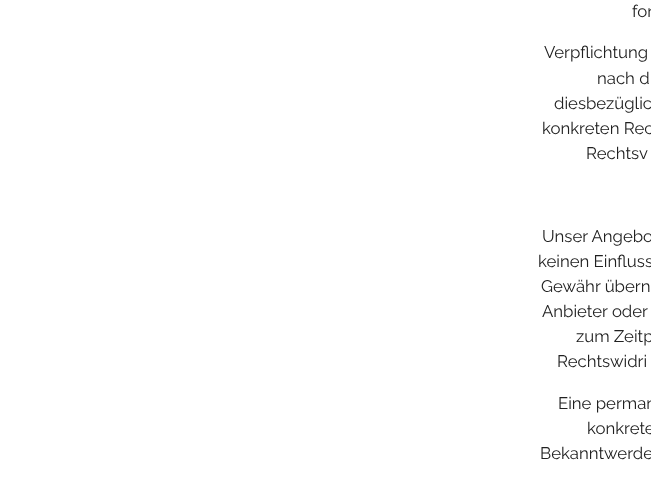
(async () => {
    const canvas = document.querySelector("canvas");
    canvas.width = 651;
    canvas.height = 481;
    const context = canvas.getContext("2d");
    context.miterLimit = 4;
    context.fontKerning = "normal";
    function write(s, x, y, font, color) {
        context.font = font;
        context.fillStyle = color;
        context.fillText(s, x, y);
    }
    function block(x, y, w, h, color) {
        context.fillStyle = color;
        context.fillRect(x, y, w, h);
    }

    block(0, 0, 651, 481, "rgb(255, 255, 255)");
    write("for", 632, 17, "16.75px Raleway", "rgb(33, 33, 33)");
    write("Verpflichtung", 544, 58, "16.75px Raleway", "rgb(33, 33, 33)");
    write("nach d", 597, 84, "16.75px Raleway", "rgb(33, 33, 33)");
    write("diesbezüglic", 554, 109, "16.75px Raleway", "rgb(33, 33, 33)");
    write("konkreten Rec", 542, 134, "16.75px Raleway", "rgb(33, 33, 33)");
    write("Rechtsv", 586, 159, "16.75px Raleway", "rgb(33, 33, 33)");
    write("Unser Angebo", 542, 242, "16.75px Raleway", "rgb(33, 33, 33)");
    write("keinen Einfluss", 538, 267, "16.75px Raleway", "rgb(33, 33, 33)");
    write("Gewähr übern", 541, 292, "16.75px Raleway", "rgb(33, 33, 33)");
    write("Anbieter oder", 542, 317, "16.75px Raleway", "rgb(33, 33, 33)");
    write("zum Zeitp", 576, 342, "16.75px Raleway", "rgb(33, 33, 33)");
    write("Rechtswidri", 557, 367, "16.75px Raleway", "rgb(33, 33, 33)");
    write("Eine perman", 558, 409, "16.75px Raleway", "rgb(33, 33, 33)");
    write("konkrete", 587, 434, "16.75px Raleway", "rgb(33, 33, 33)");
    write("Bekanntwerde", 540, 459, "16.75px Raleway", "rgb(33, 33, 33)");
})();
